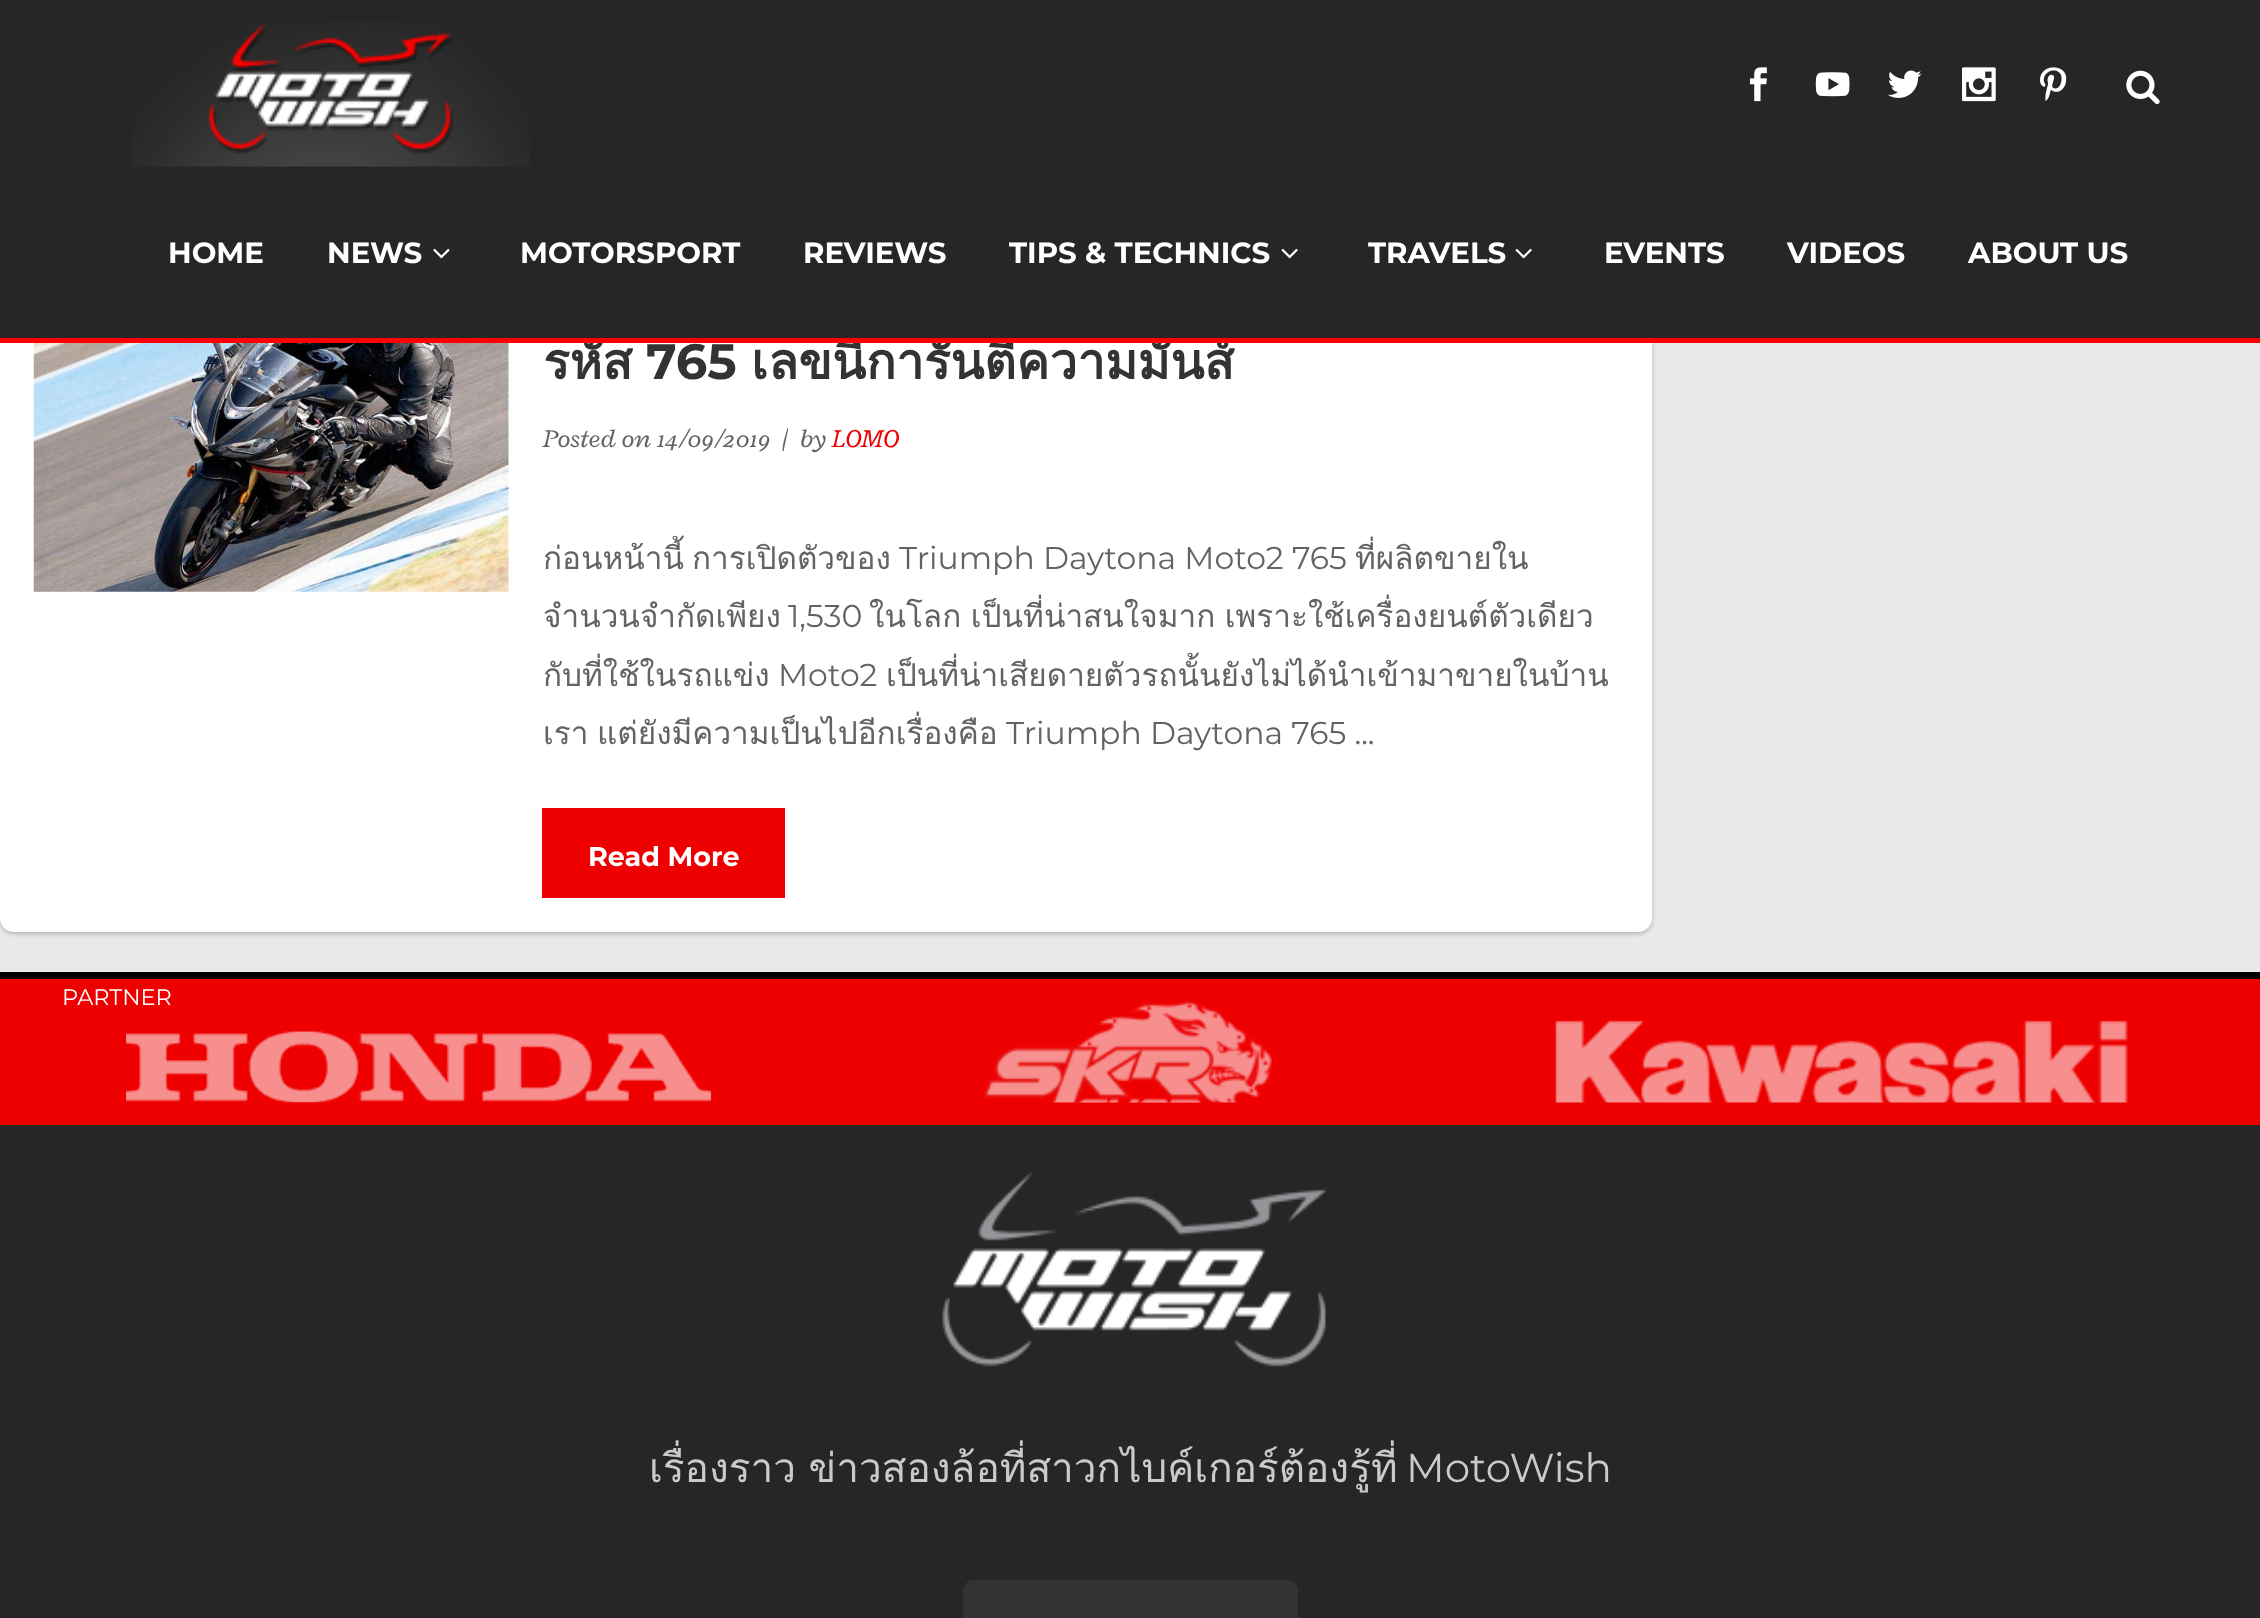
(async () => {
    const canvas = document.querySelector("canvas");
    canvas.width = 2260;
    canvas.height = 1618;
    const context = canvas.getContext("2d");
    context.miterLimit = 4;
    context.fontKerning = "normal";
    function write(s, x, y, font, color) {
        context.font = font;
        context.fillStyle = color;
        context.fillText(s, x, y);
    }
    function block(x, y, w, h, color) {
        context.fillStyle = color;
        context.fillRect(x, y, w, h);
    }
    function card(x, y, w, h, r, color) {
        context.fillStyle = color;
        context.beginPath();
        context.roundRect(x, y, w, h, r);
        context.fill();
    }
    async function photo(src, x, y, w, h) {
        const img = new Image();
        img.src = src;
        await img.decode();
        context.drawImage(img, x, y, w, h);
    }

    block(0, 0, 2260, 1618, "rgb(233, 233, 233)");
    context.fillStyle = "rgba(0, 0, 0, 0.22)";
    context.filter = "blur(2px)";
    context.beginPath();
    context.roundRect(0, 243, 1652, 691, 14);
    context.fill();
    context.filter = "none";
    card(0, 241, 1652, 691, 14, "rgb(255, 255, 255)");
    write("เลขนี้การันตีความมันส์", 751, 379, "bold 49.5px Loma", "rgb(51, 51, 51)");
    block(0, 0, 2260, 338, "rgb(38, 38, 38)");
    write("รหัส", 543, 379, "bold 49.5px Loma", "rgb(51, 51, 51)");
    block(0, 338, 2260, 5, "rgb(255, 0, 0)");
    await photo("media/1.png", 132, 22, 398, 145);
    await photo("media/2.png", 1749, 67, 18, 35);
    await photo("media/3.png", 1815, 72, 35, 25);
    await photo("media/4.png", 1888, 70, 34, 28);
    await photo("media/5.png", 1962, 67, 34, 35);
    await photo("media/6.png", 2040, 67, 27, 34);
    await photo("media/7.png", 2126, 70, 34, 35);
    write("HOME", 168, 263, "bold 29.25px Montserrat", "rgb(255, 255, 255)");
    write("NEWS", 327, 263, "bold 29.25px Montserrat", "rgb(255, 255, 255)");
    await photo("media/8.png", 433, 248, 17, 11);
    write("MOTORSPORT", 520, 263, "bold 29.25px Montserrat", "rgb(255, 255, 255)");
    write("REVIEWS", 803, 263, "bold 29.25px Montserrat", "rgb(255, 255, 255)");
    write("TIPS & TECHNICS", 1009, 263, "bold 29.25px Montserrat", "rgb(255, 255, 255)");
    await photo("media/9.png", 1281, 248, 17, 11);
    write("TRAVELS", 1368, 263, "bold 29.25px Montserrat", "rgb(255, 255, 255)");
    await photo("media/9.png", 1515, 248, 17, 11);
    write("EVENTS", 1604, 263, "bold 29.25px Montserrat", "rgb(255, 255, 255)");
    write("VIDEOS", 1787, 263, "bold 29.25px Montserrat", "rgb(255, 255, 255)");
    write("ABOUT US", 1968, 263, "bold 29.25px Montserrat", "rgb(255, 255, 255)");
    await photo("media/10.png", 33, 343, 476, 249);
    write("765", 646, 379, "bold 49.5px Montserrat", "rgb(51, 51, 51)");
    write("Posted on 14/09/2019", 543, 447, "italic 27px Radley", "rgb(99, 99, 99)");
    write("|", 782, 447, "italic 27px Radley", "rgb(99, 99, 99)");
    write("by", 800, 447, "italic 27px Radley", "rgb(99, 99, 99)");
    write("LOMO", 832, 447, "italic 27px Radley", "rgb(236, 0, 0)");
    write("ก่อนหน้านี้", 543, 569, "31.5px Loma", "rgb(99, 99, 99)");
    write("การเปิดตัวของ", 692, 569, "31.5px Loma", "rgb(99, 99, 99)");
    write("Triumph Daytona Moto2 765", 899, 569, "31.5px Montserrat", "rgb(99, 99, 99)");
    write("ที่ผลิตขายใน", 1355, 569, "31.5px Loma", "rgb(99, 99, 99)");
    write("จำนวนจำกัดเพียง", 543, 627, "31.5px Loma", "rgb(99, 99, 99)");
    write("1,530", 788, 627, "31.5px Montserrat", "rgb(99, 99, 99)");
    context.wordSpacing = "-1px";
    write("ในโลก เป็นที่น่าสนใจมาก เพราะใช้เครื่องยนต์ตัวเดียว", 869, 627, "31.5px Loma", "rgb(99, 99, 99)");
    context.wordSpacing = "0px";
    write("กับที่ใช้ในรถแข่ง", 543, 686, "31.5px Loma", "rgb(99, 99, 99)");
    write("Moto2", 778, 686, "31.5px Montserrat", "rgb(99, 99, 99)");
    write("เป็นที่น่าเสียดายตัวรถนั้นยังไม่ได้นำเข้ามาขายในบ้าน", 886, 686, "31.5px Loma", "rgb(99, 99, 99)");
    write("เรา", 543, 744, "31.5px Loma", "rgb(99, 99, 99)");
    write("แต่ยังมีความเป็นไปอีกเรื่องคือ", 597, 744, "31.5px Loma", "rgb(99, 99, 99)");
    write("Triumph Daytona 765 ...", 1006, 744, "31.5px Montserrat", "rgb(99, 99, 99)");
    block(542, 808, 243, 90, "rgb(239, 0, 0)");
    write("Read More", 588, 866, "bold 27px Montserrat", "rgb(255, 255, 255)");
    block(0, 972, 2260, 7, "rgb(0, 0, 0)");
    block(0, 979, 2260, 146, "rgb(238, 0, 0)");
    write("PARTNER", 62, 1005, "22.5px Montserrat", "rgb(255, 255, 255)");
    await photo("media/11.png", 126, 1030, 585, 73);
    await photo("media/12.png", 982, 1001, 291, 102);
    await photo("media/13.png", 1555, 1020, 573, 83);
    block(0, 1125, 2260, 493, "rgb(38, 38, 38)");
    await photo("media/14.png", 942, 1172, 384, 195);
    context.wordSpacing = "-1px";
    write("เรื่องราว ข่าวสองล้อที่สาวกไบค์เกอร์ต้องรู้ที่", 649, 1482, "40.5px Loma", "rgb(202, 202, 202)");
    context.wordSpacing = "0px";
    write("MotoWish", 1406, 1482, "40.5px Montserrat", "rgb(202, 202, 202)");
    card(963, 1580, 335, 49, 11, "rgb(51, 51, 51)");
})();
